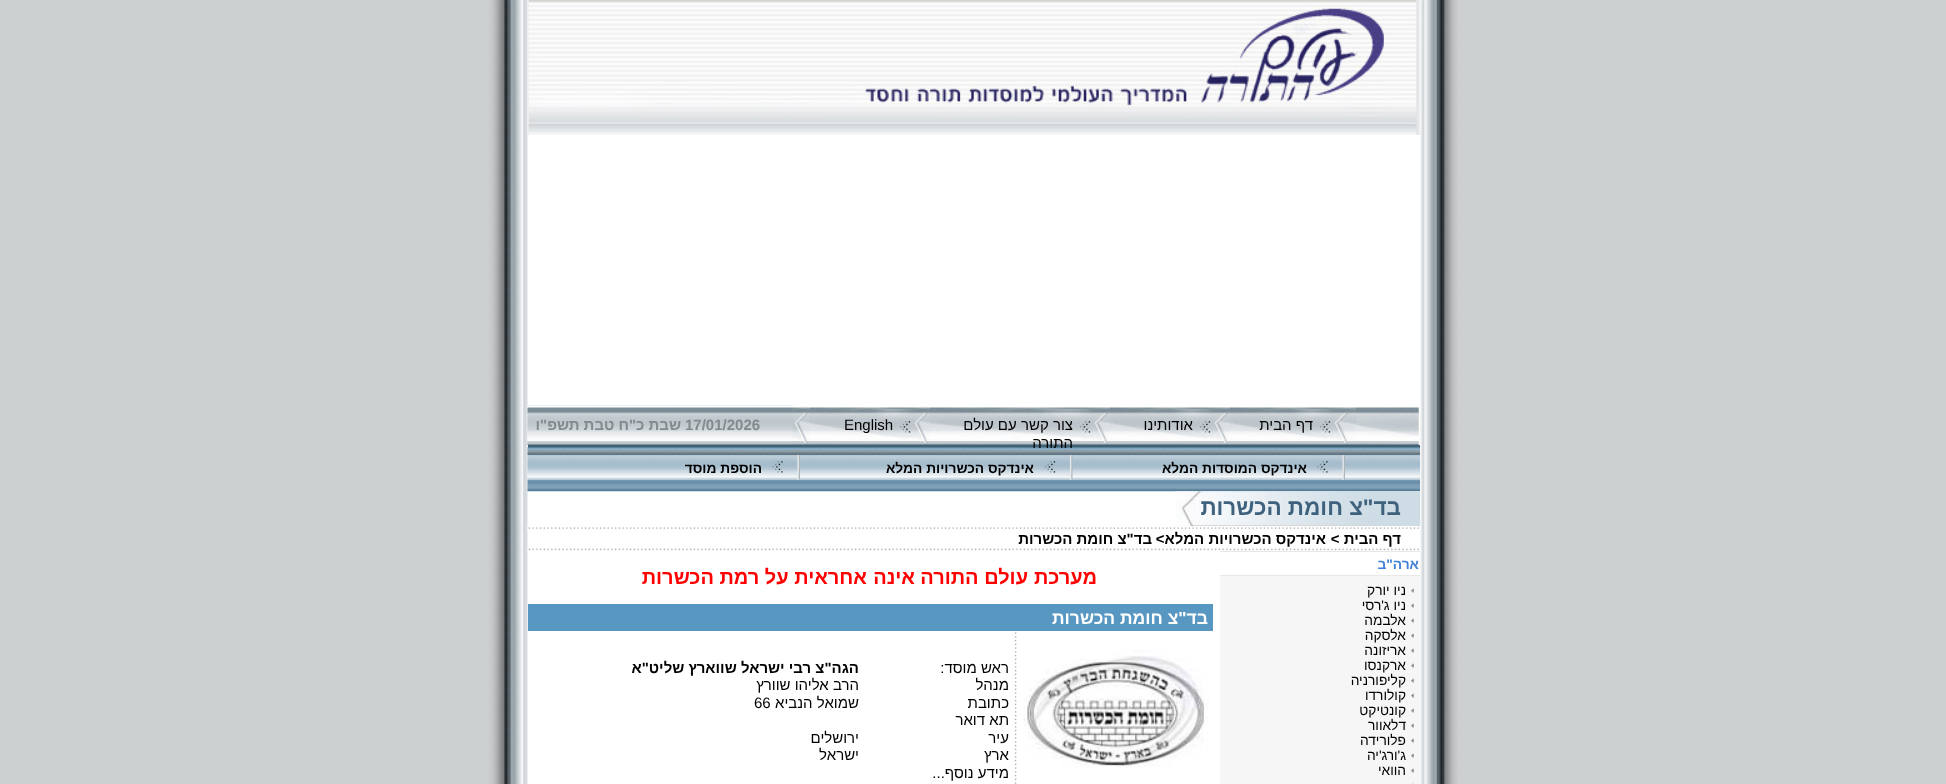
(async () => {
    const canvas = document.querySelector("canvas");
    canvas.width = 1946;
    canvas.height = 784;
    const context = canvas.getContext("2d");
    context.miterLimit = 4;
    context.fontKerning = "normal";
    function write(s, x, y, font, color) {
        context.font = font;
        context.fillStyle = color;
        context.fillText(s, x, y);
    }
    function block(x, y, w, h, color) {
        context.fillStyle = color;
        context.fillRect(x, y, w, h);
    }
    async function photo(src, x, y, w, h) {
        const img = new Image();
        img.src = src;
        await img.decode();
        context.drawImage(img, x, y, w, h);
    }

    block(0, 0, 1946, 784, "rgb(205, 208, 209)");
    await photo("media/1.png", 489, 0, 969, 784);
    block(528, 135, 1, 649, "rgb(255, 255, 255)");
    await photo("media/2.png", 528, 0, 892, 135);
    await photo("media/3.png", 527, 405, 806, 43);
    block(528, 445, 892, 3, "rgb(62, 98, 120)");
    await photo("media/4.png", 1350, 405, 70, 40);
    await photo("media/5.png", 1332, 405, 18, 40);
    await photo("media/6.png", 1230, 405, 103, 40);
    context.direction = "rtl";
    write("דף הבית", 1313, 430, "15px Liberation Sans", "rgb(0, 0, 0)");
    await photo("media/7.png", 1212, 405, 18, 40);
    await photo("media/8.png", 1110, 405, 103, 40);
    write("אודותינו", 1193, 430, "15px Liberation Sans", "rgb(0, 0, 0)");
    await photo("media/5.png", 1092, 405, 18, 40);
    await photo("media/9.png", 930, 405, 163, 40);
    write("צור קשר עם עולם", 1073, 430, "15px Liberation Sans", "rgb(0, 0, 0)");
    await photo("media/10.png", 527, 447, 893, 8);
    write("התורה", 1073, 448, "15px Liberation Sans", "rgb(0, 0, 0)");
    await photo("media/7.png", 912, 405, 18, 40);
    await photo("media/8.png", 810, 405, 103, 40);
    context.direction = "ltr";
    write("English", 844, 430, "15px Liberation Sans", "rgb(0, 0, 0)");
    await photo("media/7.png", 792, 405, 18, 40);
    write("17/01/2026", 685, 430, "bold 15px Liberation Sans", "rgb(130, 138, 141)");
    context.direction = "rtl";
    write("שבת כ\"ח טבת תשפ\"ו", 681, 430, "bold 15px Liberation Sans", "rgb(130, 138, 141)");
    await photo("media/11.png", 527, 455, 893, 25);
    await photo("media/12.png", 1315, 455, 30, 25);
    write("אינדקס המוסדות המלא", 1307, 473, "bold 13.75px Liberation Sans", "rgb(0, 0, 0)");
    await photo("media/13.png", 1044, 455, 29, 25);
    write("אינדקס הכשרויות המלא", 1034, 473, "bold 13.75px Liberation Sans", "rgb(0, 0, 0)");
    await photo("media/12.png", 770, 455, 30, 25);
    write("הוספת מוסד", 762, 473, "bold 13.75px Liberation Sans", "rgb(0, 0, 0)");
    await photo("media/14.png", 527, 480, 893, 12);
    await photo("media/17.png", 527, 526, 892, 4);
    await photo("media/15.png", 1417, 526, 3, 1);
    block(1175, 491, 245, 35, "rgb(206, 220, 229)");
    await photo("media/16.png", 1175, 491, 200, 36);
    write("בד\"צ חומת הכשרות", 1401, 515, "bold 22.5px Liberation Sans", "rgb(62, 97, 125)");
    write("דף הבית >", 1401, 544, "bold 15px Liberation Sans", "rgb(0, 0, 0)");
    write("אינדקס הכשרויות המלא>", 1326, 544, "bold 15px Liberation Sans", "rgb(0, 0, 0)");
    write("בד\"צ חומת הכשרות", 1152, 544, "bold 15px Liberation Sans", "rgb(0, 0, 0)");
    await photo("media/18.png", 527, 547, 892, 4);
    block(1220, 551, 200, 1, "rgb(232, 232, 232)");
    block(1220, 575, 200, 1, "rgb(232, 232, 232)");
    write("ארה\"ב", 1419, 569, "bold 13.75px Liberation Sans", "rgb(66, 128, 215)");
    block(1220, 576, 200, 208, "rgb(246, 246, 246)");
    await photo("media/19.png", 1411, 588, 3, 5);
    write("ניו יורק", 1406, 595, "13.75px Liberation Sans", "rgb(0, 0, 0)");
    await photo("media/19.png", 1411, 603, 3, 5);
    write("ניו ג'רסי", 1406, 610, "13.75px Liberation Sans", "rgb(0, 0, 0)");
    await photo("media/19.png", 1411, 618, 3, 5);
    write("אלבמה", 1406, 625, "13.75px Liberation Sans", "rgb(0, 0, 0)");
    await photo("media/19.png", 1411, 633, 3, 5);
    write("אלסקה", 1406, 640, "13.75px Liberation Sans", "rgb(0, 0, 0)");
    await photo("media/19.png", 1411, 648, 3, 5);
    write("אריזונה", 1406, 655, "13.75px Liberation Sans", "rgb(0, 0, 0)");
    await photo("media/19.png", 1411, 663, 3, 5);
    write("ארקנסו", 1406, 670, "13.75px Liberation Sans", "rgb(0, 0, 0)");
    await photo("media/19.png", 1411, 678, 3, 5);
    write("קליפורניה", 1406, 685, "13.75px Liberation Sans", "rgb(0, 0, 0)");
    await photo("media/19.png", 1411, 693, 3, 5);
    write("קולורדו", 1406, 700, "13.75px Liberation Sans", "rgb(0, 0, 0)");
    await photo("media/19.png", 1411, 708, 3, 5);
    write("קונטיקט", 1406, 715, "13.75px Liberation Sans", "rgb(0, 0, 0)");
    await photo("media/19.png", 1411, 723, 3, 5);
    write("דלאוור", 1406, 730, "13.75px Liberation Sans", "rgb(0, 0, 0)");
    await photo("media/19.png", 1411, 738, 3, 5);
    write("פלורידה", 1406, 745, "13.75px Liberation Sans", "rgb(0, 0, 0)");
    await photo("media/19.png", 1411, 753, 3, 5);
    write("ג'ורג'יה", 1406, 760, "13.75px Liberation Sans", "rgb(0, 0, 0)");
    await photo("media/19.png", 1411, 768, 3, 5);
    write("הוואי", 1406, 775, "13.75px Liberation Sans", "rgb(0, 0, 0)");
    await photo("media/20.png", 1412, 783, 2, 1);
    write("מערכת", 1097, 584, "bold 20px Liberation Sans", "rgb(255, 0, 0)");
    write("עולם התורה", 1028, 584, "bold 20px Liberation Sans", "rgb(255, 0, 0)");
    write("אינה", 915, 584, "bold 20px Liberation Sans", "rgb(255, 0, 0)");
    write("אחראית על רמת הכשרות", 867, 584, "bold 20px Liberation Sans", "rgb(255, 0, 0)");
    block(528, 604, 685, 27, "rgb(88, 151, 194)");
    write("בד\"צ חומת הכשרות", 1208, 624, "bold 17.5px Liberation Sans", "rgb(255, 255, 255)");
    await photo("media/21.png", 1023, 650, 186, 119);
    await photo("media/22.png", 1014, 632, 3, 152);
    write("ראש מוסד:", 1009, 673, "15px Liberation Sans", "rgb(0, 0, 0)");
    write("הגה\"צ רבי ישראל שווארץ שליט\"א", 859, 673, "bold 15px Liberation Sans", "rgb(0, 0, 0)");
    write("מנהל", 1009, 690, "15px Liberation Sans", "rgb(0, 0, 0)");
    write("הרב אליהו שוורץ", 859, 690, "15px Liberation Sans", "rgb(0, 0, 0)");
    write("כתובת", 1009, 708, "15px Liberation Sans", "rgb(0, 0, 0)");
    write("שמואל הנביא", 859, 708, "15px Liberation Sans", "rgb(0, 0, 0)");
    context.direction = "ltr";
    write("66", 754, 708, "15px Liberation Sans", "rgb(0, 0, 0)");
    context.direction = "rtl";
    write("תא דואר", 1009, 725, "15px Liberation Sans", "rgb(0, 0, 0)");
    write("עיר", 1009, 743, "15px Liberation Sans", "rgb(0, 0, 0)");
    write("ירושלים", 859, 743, "15px Liberation Sans", "rgb(0, 0, 0)");
    write("ארץ", 1009, 760, "15px Liberation Sans", "rgb(0, 0, 0)");
    write("ישראל", 859, 760, "15px Liberation Sans", "rgb(0, 0, 0)");
    write("מידע נוסף...", 1009, 778, "15px Liberation Sans", "rgb(0, 0, 0)");
})();
